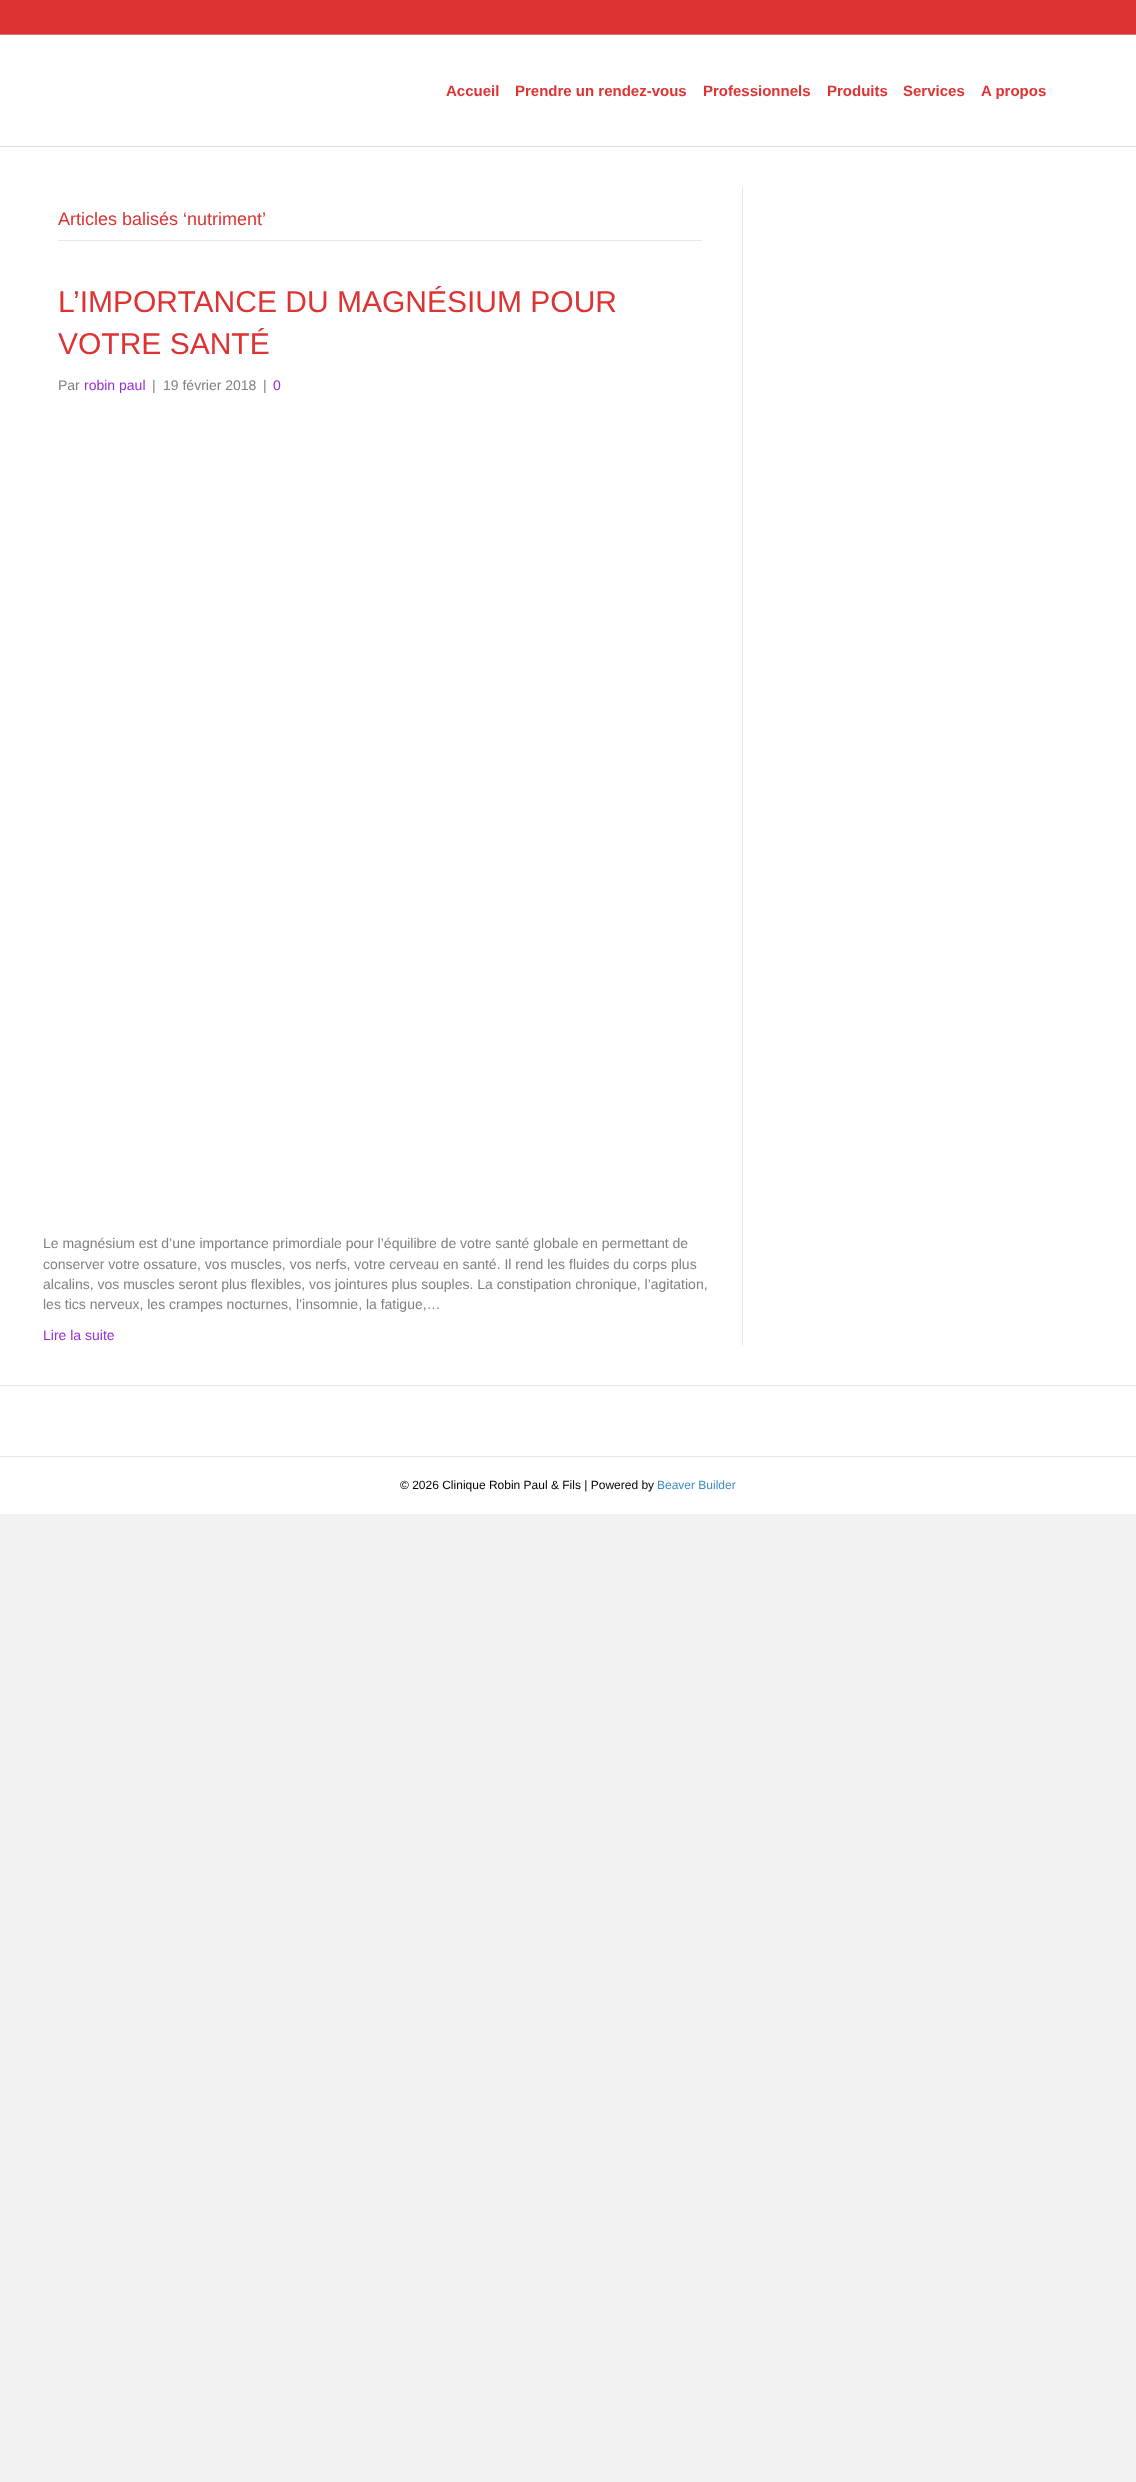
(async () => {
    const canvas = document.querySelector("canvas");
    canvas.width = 1136;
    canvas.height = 2482;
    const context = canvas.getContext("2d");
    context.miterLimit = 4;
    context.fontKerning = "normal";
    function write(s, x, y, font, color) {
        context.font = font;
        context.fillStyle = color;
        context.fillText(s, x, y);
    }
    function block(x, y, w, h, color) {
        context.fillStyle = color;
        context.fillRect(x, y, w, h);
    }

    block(0, 0, 1136, 2482, "rgb(242, 242, 242)");
    block(0, 0, 1136, 34, "rgb(221, 51, 51)");
    block(0, 34, 1136, 1, "rgb(230, 108, 108)");
    block(0, 35, 1136, 111, "rgb(255, 255, 255)");
    block(0, 146, 1136, 1, "rgb(222, 222, 222)");
    write("Accueil", 446, 96, "bold 15px Liberation Sans", "rgb(221, 51, 51)");
    write("Prendre un rendez-vous", 515, 96, "bold 15px Liberation Sans", "rgb(221, 51, 51)");
    write("Professionnels", 703, 96, "bold 15px Liberation Sans", "rgb(221, 51, 51)");
    write("Produits", 827, 96, "bold 15px Liberation Sans", "rgb(221, 51, 51)");
    write("Services", 903, 96, "bold 15px Liberation Sans", "rgb(221, 51, 51)");
    write("A propos", 981, 96, "bold 15px Liberation Sans", "rgb(221, 51, 51)");
    block(0, 147, 1136, 1238, "rgb(255, 255, 255)");
    block(742, 187, 1, 1158, "rgb(230, 230, 230)");
    block(58, 240, 644, 1, "rgb(230, 230, 230)");
    write("Articles balisés ‘nutriment’", 58, 225, "18px Liberation Sans", "rgb(221, 51, 51)");
    write("L’IMPORTANCE DU MAGNÉSIUM POUR", 58, 312, "30px Liberation Sans", "rgb(221, 51, 51)");
    write("VOTRE SANTÉ", 58, 354, "30px Liberation Sans", "rgb(221, 51, 51)");
    write("Par", 58, 390, "14px Liberation Sans", "rgb(128, 128, 128)");
    write("robin paul", 84, 390, "14px Liberation Sans", "rgb(151, 45, 216)");
    write("|", 152, 390, "14px Liberation Sans", "rgb(128, 128, 128)");
    write("19 février 2018", 163, 390, "14px Liberation Sans", "rgb(128, 128, 128)");
    write("|", 263, 390, "14px Liberation Sans", "rgb(128, 128, 128)");
    write("0", 273, 390, "14px Liberation Sans", "rgb(151, 45, 216)");
    write("Le magnésium est d’une importance primordiale pour l’équilibre de votre santé globale en permettant de", 43, 1248, "14px Liberation Sans", "rgb(128, 128, 128)");
    write("conserver votre ossature, vos muscles, vos nerfs, votre cerveau en santé. Il rend les fluides du corps plus", 43, 1269, "14px Liberation Sans", "rgb(128, 128, 128)");
    write("alcalins, vos muscles seront plus flexibles, vos jointures plus souples. La constipation chronique, l’agitation,", 43, 1289, "14px Liberation Sans", "rgb(128, 128, 128)");
    write("les tics nerveux, les crampes nocturnes, l’insomnie, la fatigue,…", 43, 1309, "14px Liberation Sans", "rgb(128, 128, 128)");
    write("Lire la suite", 43, 1340, "14px Liberation Sans", "rgb(151, 45, 216)");
    block(0, 1386, 1136, 70, "rgb(255, 255, 255)");
    block(0, 1385, 1136, 1, "rgb(230, 230, 230)");
    block(0, 1457, 1136, 57, "rgb(255, 255, 255)");
    block(0, 1456, 1136, 1, "rgb(230, 230, 230)");
    write("© 2026 Clinique Robin Paul & Fils | Powered by", 400, 1489, "12px Liberation Sans", "rgb(0, 0, 0)");
    write("Beaver Builder", 657, 1489, "12px Liberation Sans", "rgb(66, 139, 202)");
})();
